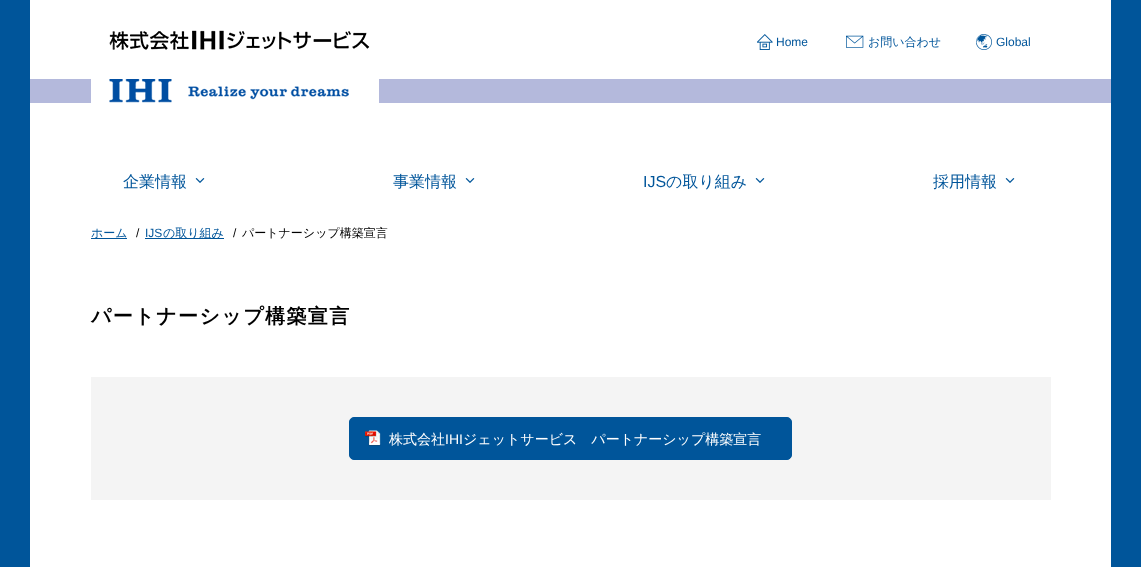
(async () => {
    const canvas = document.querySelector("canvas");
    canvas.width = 1141;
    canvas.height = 567;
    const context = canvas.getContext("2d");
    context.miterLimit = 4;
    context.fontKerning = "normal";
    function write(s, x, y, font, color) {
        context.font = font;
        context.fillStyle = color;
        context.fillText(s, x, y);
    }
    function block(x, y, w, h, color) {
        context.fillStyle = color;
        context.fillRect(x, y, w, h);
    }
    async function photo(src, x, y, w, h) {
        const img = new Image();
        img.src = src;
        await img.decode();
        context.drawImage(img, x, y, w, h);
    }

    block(0, 0, 1141, 567, "rgb(0, 85, 154)");
    block(30, 0, 1081, 567, "rgb(255, 255, 255)");
    block(30, 79, 1081, 24, "rgb(180, 185, 220)");
    await photo("media/1.png", 109, 30, 261, 20);
    await photo("media/2.png", 757, 34, 16, 16);
    write("Home", 776, 46, "12px Liberation Sans", "rgb(0, 85, 154)");
    await photo("media/3.png", 846, 35, 18, 13);
    write("お問い合わせ", 868, 46, "500 12px WenQuanYi Zen Hei", "rgb(0, 85, 154)");
    await photo("media/4.png", 976, 34, 16, 16);
    write("Global", 996, 46, "12px Liberation Sans", "rgb(0, 85, 154)");
    block(91, 79, 288, 24, "rgb(255, 255, 255)");
    await photo("media/5.png", 109, 79, 240, 24);
    write("企業情報", 123, 187, "500 16px WenQuanYi Zen Hei", "rgb(0, 85, 154)");
    await photo("media/6.png", 195, 178, 10, 5);
    write("事業情報", 393, 187, "500 16px WenQuanYi Zen Hei", "rgb(0, 85, 154)");
    await photo("media/6.png", 465, 178, 10, 5);
    write("IJS", 643, 187, "16px Liberation Sans", "rgb(0, 85, 154)");
    write("の取り組み", 666, 187, "500 16px WenQuanYi Zen Hei", "rgb(0, 85, 154)");
    await photo("media/6.png", 755, 178, 10, 5);
    write("採用情報", 933, 187, "500 16px WenQuanYi Zen Hei", "rgb(0, 85, 154)");
    await photo("media/6.png", 1005, 178, 10, 5);
    block(91, 238, 36, 1, "rgb(0, 85, 154)");
    write("ホーム", 91, 237, "500 12px WenQuanYi Zen Hei", "rgb(0, 85, 154)");
    write("/", 136, 237, "12px Liberation Sans", "rgb(0, 0, 0)");
    write("IJS", 145, 237, "12px Liberation Sans", "rgb(0, 85, 154)");
    block(145, 238, 79, 1, "rgb(0, 85, 154)");
    write("の取り組み", 163, 237, "500 12px WenQuanYi Zen Hei", "rgb(0, 85, 154)");
    write("/", 233, 237, "12px Liberation Sans", "rgb(0, 0, 0)");
    write("パートナーシップ構築宣言", 242, 237, "500 12px WenQuanYi Zen Hei", "rgb(0, 0, 0)");
    context.letterSpacing = "1.4px";
    write("パートナーシップ構築宣言", 91, 323, "bold 20px WenQuanYi Zen Hei", "rgb(0, 0, 0)");
    block(91, 377, 960, 123, "rgb(244, 244, 244)");
    context.fillStyle = "rgb(0, 85, 154)";
    context.beginPath();
    context.roundRect(349.5, 417.5, 442, 42, 4.5);
    context.fill();
    context.strokeStyle = "rgb(0, 85, 154)";
    context.stroke();
    await photo("media/7.png", 365, 430, 16, 16);
    context.letterSpacing = "0px";
    write("株式会社", 389, 444, "500 14px WenQuanYi Zen Hei", "rgb(255, 255, 255)");
    write("IHI", 445, 444, "14px Liberation Sans", "rgb(255, 255, 255)");
    write("ジェットサービス　パートナーシップ構築宣言", 463, 444, "500 14px WenQuanYi Zen Hei", "rgb(255, 255, 255)");
})();
